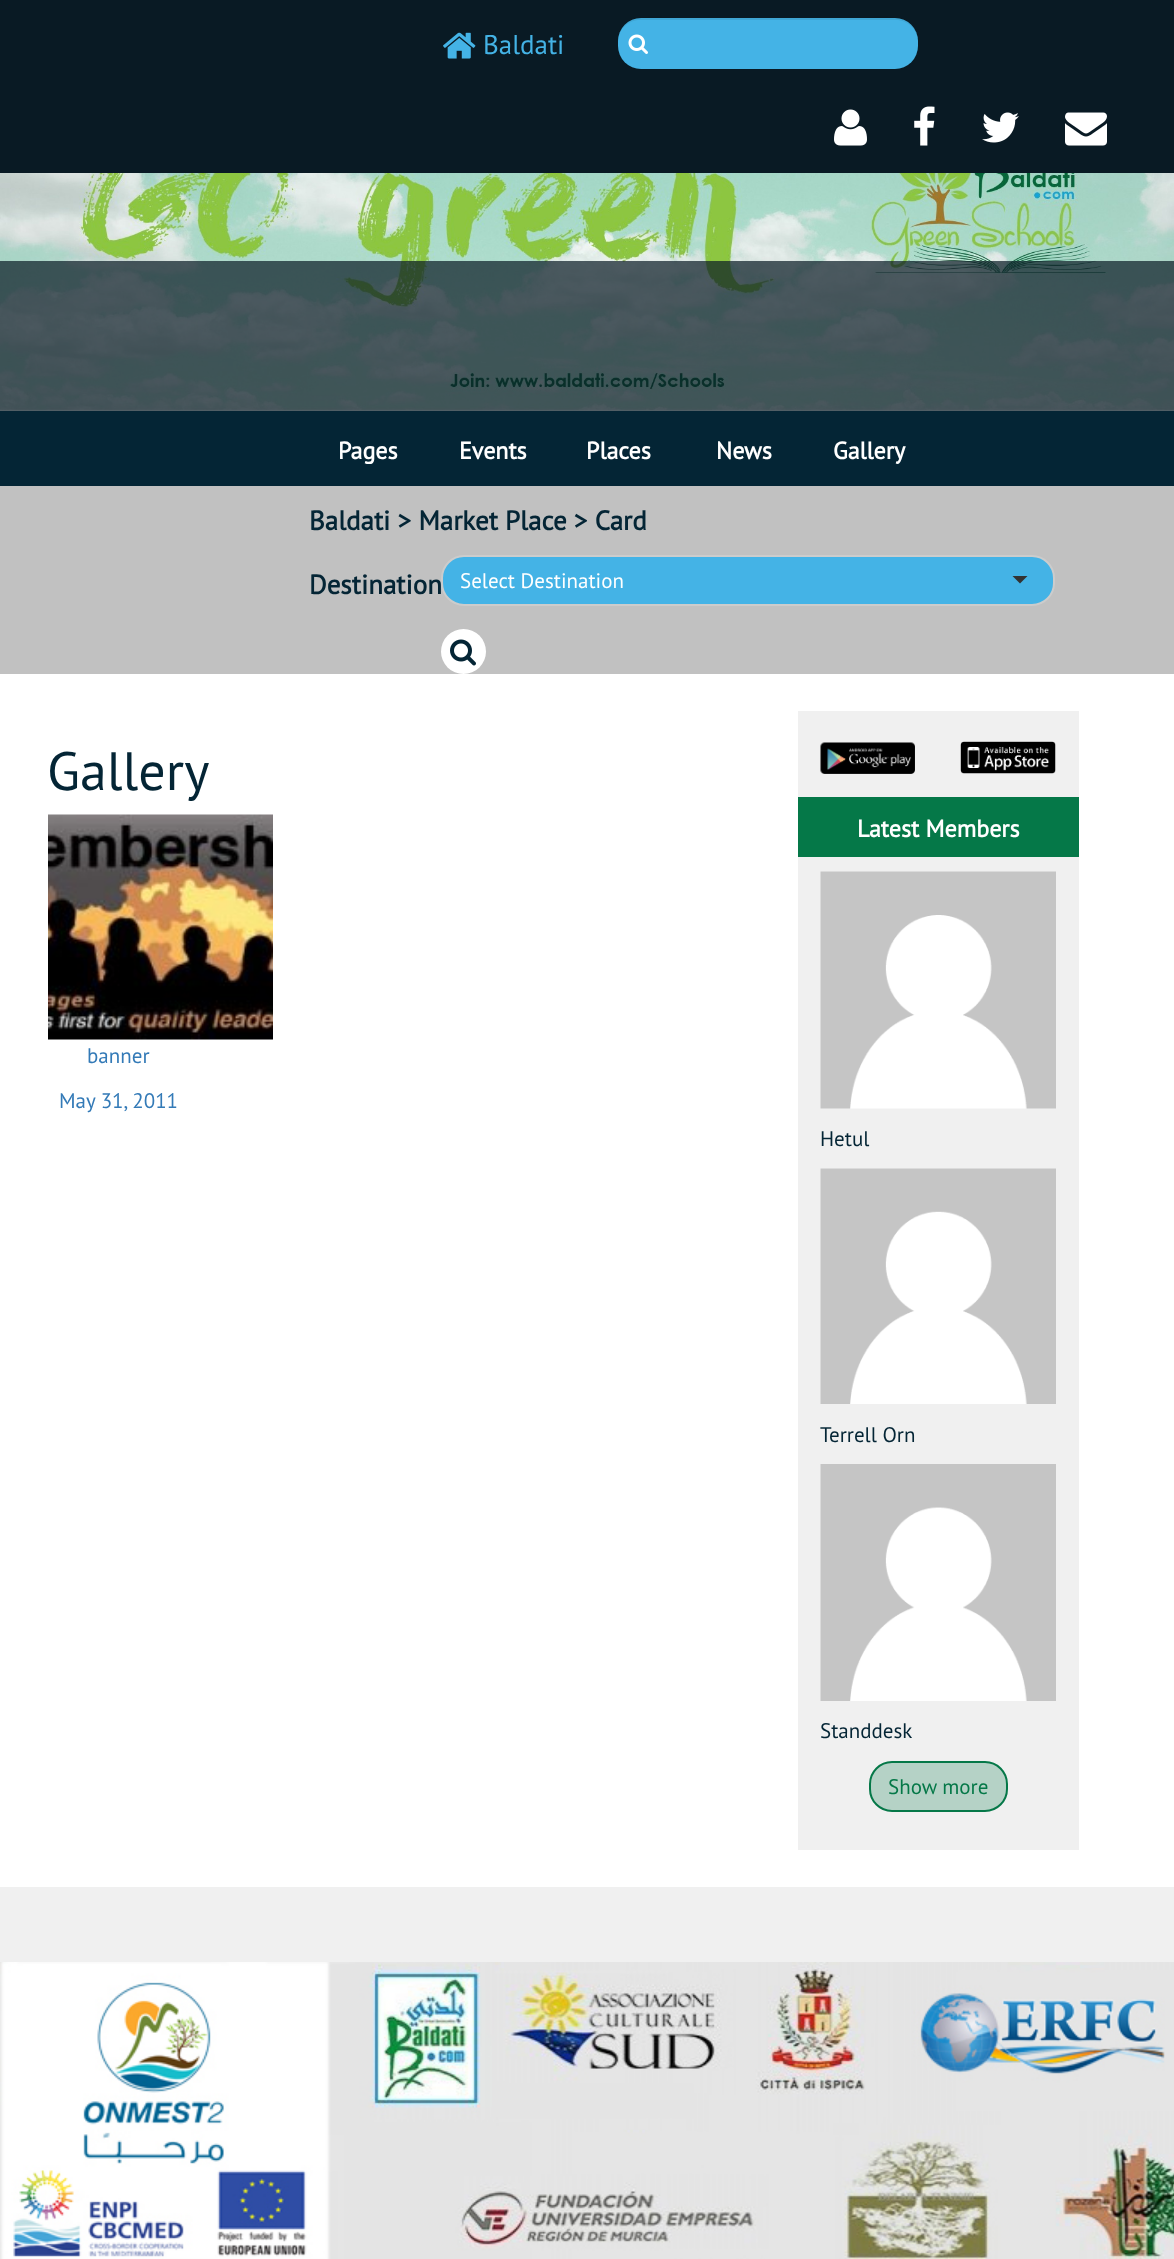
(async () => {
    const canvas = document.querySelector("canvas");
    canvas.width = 1174;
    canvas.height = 2259;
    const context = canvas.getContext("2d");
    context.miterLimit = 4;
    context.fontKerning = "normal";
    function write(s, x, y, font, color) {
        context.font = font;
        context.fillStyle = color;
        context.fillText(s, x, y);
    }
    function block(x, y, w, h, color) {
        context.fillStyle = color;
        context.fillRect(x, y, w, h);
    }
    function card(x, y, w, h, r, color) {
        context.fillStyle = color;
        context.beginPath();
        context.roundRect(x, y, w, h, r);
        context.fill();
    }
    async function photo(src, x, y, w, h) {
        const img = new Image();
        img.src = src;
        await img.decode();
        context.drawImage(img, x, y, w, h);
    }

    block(0, 0, 1174, 2259, "rgb(255, 255, 255)");
    block(0, 0, 1174, 173, "rgb(9, 26, 36)");
    await photo("media/1.png", 443, 32, 33, 27);
    write("Baldati", 483, 54, "27px PT Sans", "rgb(68, 179, 230)");
    card(618, 18, 300, 51, 23, "rgb(68, 179, 230)");
    context.fillStyle = "rgba(0, 0, 0, 0.07)";
    context.beginPath();
    context.moveTo(640, 20);
    context.lineTo(896, 20);
    context.bezierCurveTo(908, 20, 918, 30, 918, 42);
    context.bezierCurveTo(918, 8, 872, 18, 853, 18);
    context.lineTo(683, 18);
    context.bezierCurveTo(664, 18, 618, 8, 618, 42);
    context.bezierCurveTo(618, 30, 628, 20, 640, 20);
    context.closePath();
    context.fill();
    await photo("media/2.png", 628, 34, 20, 20);
    await photo("media/3.png", 834, 109, 33, 37);
    await photo("media/4.png", 914, 106, 21, 40);
    await photo("media/5.png", 982, 112, 37, 31);
    await photo("media/6.png", 1065, 112, 42, 34);
    await photo("media/7.png", 0, 173, 1174, 238);
    block(0, 261, 1174, 150, "rgba(9, 26, 36, 0.7)");
    block(0, 411, 1174, 75, "rgb(4, 37, 53)");
    write("Pages", 338, 459, "bold 24px PT Sans", "rgb(255, 255, 255)");
    write("Events", 459, 459, "bold 24px PT Sans", "rgb(255, 255, 255)");
    write("Places", 586, 459, "bold 24px PT Sans", "rgb(255, 255, 255)");
    write("News", 716, 459, "bold 24px PT Sans", "rgb(255, 255, 255)");
    write("Gallery", 833, 459, "bold 24px PT Sans", "rgb(255, 255, 255)");
    block(0, 486, 1174, 188, "rgb(193, 193, 193)");
    write("Baldati > Market Place > Card", 309, 530, "bold 27px PT Sans", "rgb(4, 37, 53)");
    write("Destination", 309, 594, "bold 27px PT Sans", "rgb(4, 37, 53)");
    context.fillStyle = "rgb(68, 179, 230)";
    context.beginPath();
    context.roundRect(442, 556, 612, 49, 22);
    context.fill();
    context.strokeStyle = "rgb(204, 204, 204)";
    context.lineWidth = 2;
    context.stroke();
    write("Select Destination", 460, 588, "21px PT Sans", "rgb(255, 255, 255)");
    context.fillStyle = "rgb(51, 51, 51)";
    context.beginPath();
    context.moveTo(1012.5, 576);
    context.lineTo(1027.5, 576);
    context.lineTo(1020, 583.5);
    context.closePath();
    context.fill();
    context.fillStyle = "rgb(255, 255, 255)";
    context.beginPath();
    context.arc(463.5, 651.5, 22.5, 0, Math.PI * 2);
    context.fill();
    await photo("media/8.png", 450, 639, 26, 27);
    write("Gallery", 47, 790, "54px PT Sans", "rgb(4, 37, 53)");
    await photo("media/9.png", 48, 814, 225, 226);
    write("banner", 87, 1063, "21px PT Sans", "rgb(51, 122, 183)");
    write("May 31, 2011", 59, 1108, "21px PT Sans", "rgb(51, 122, 183)");
    block(798, 711, 281, 1139, "rgb(240, 240, 240)");
    await photo("media/10.png", 820, 742, 95, 32);
    await photo("media/11.png", 960, 741, 96, 33);
    block(798, 797, 281, 60, "rgb(5, 120, 72)");
    write("Latest Members", 857, 837, "bold 24px PT Sans", "rgb(255, 255, 255)");
    await photo("media/12.png", 820, 871, 236, 238);
    write("Hetul", 820, 1146, "21px PT Sans", "rgb(4, 37, 53)");
    await photo("media/13.png", 820, 1168, 236, 236);
    write("Terrell Orn", 820, 1442, "21px PT Sans", "rgb(4, 37, 53)");
    await photo("media/14.png", 820, 1464, 236, 237);
    write("Standdesk", 820, 1738, "21px PT Sans", "rgb(4, 37, 53)");
    context.fillStyle = "rgb(181, 210, 198)";
    context.beginPath();
    context.roundRect(870, 1762, 137, 49, 22);
    context.fill();
    context.strokeStyle = "rgb(5, 120, 72)";
    context.stroke();
    write("Show more", 888, 1794, "21px PT Sans", "rgb(5, 120, 72)");
    block(0, 1887, 1174, 75, "rgb(240, 240, 240)");
    await photo("media/15.png", 0, 1962, 1174, 297);
})();
